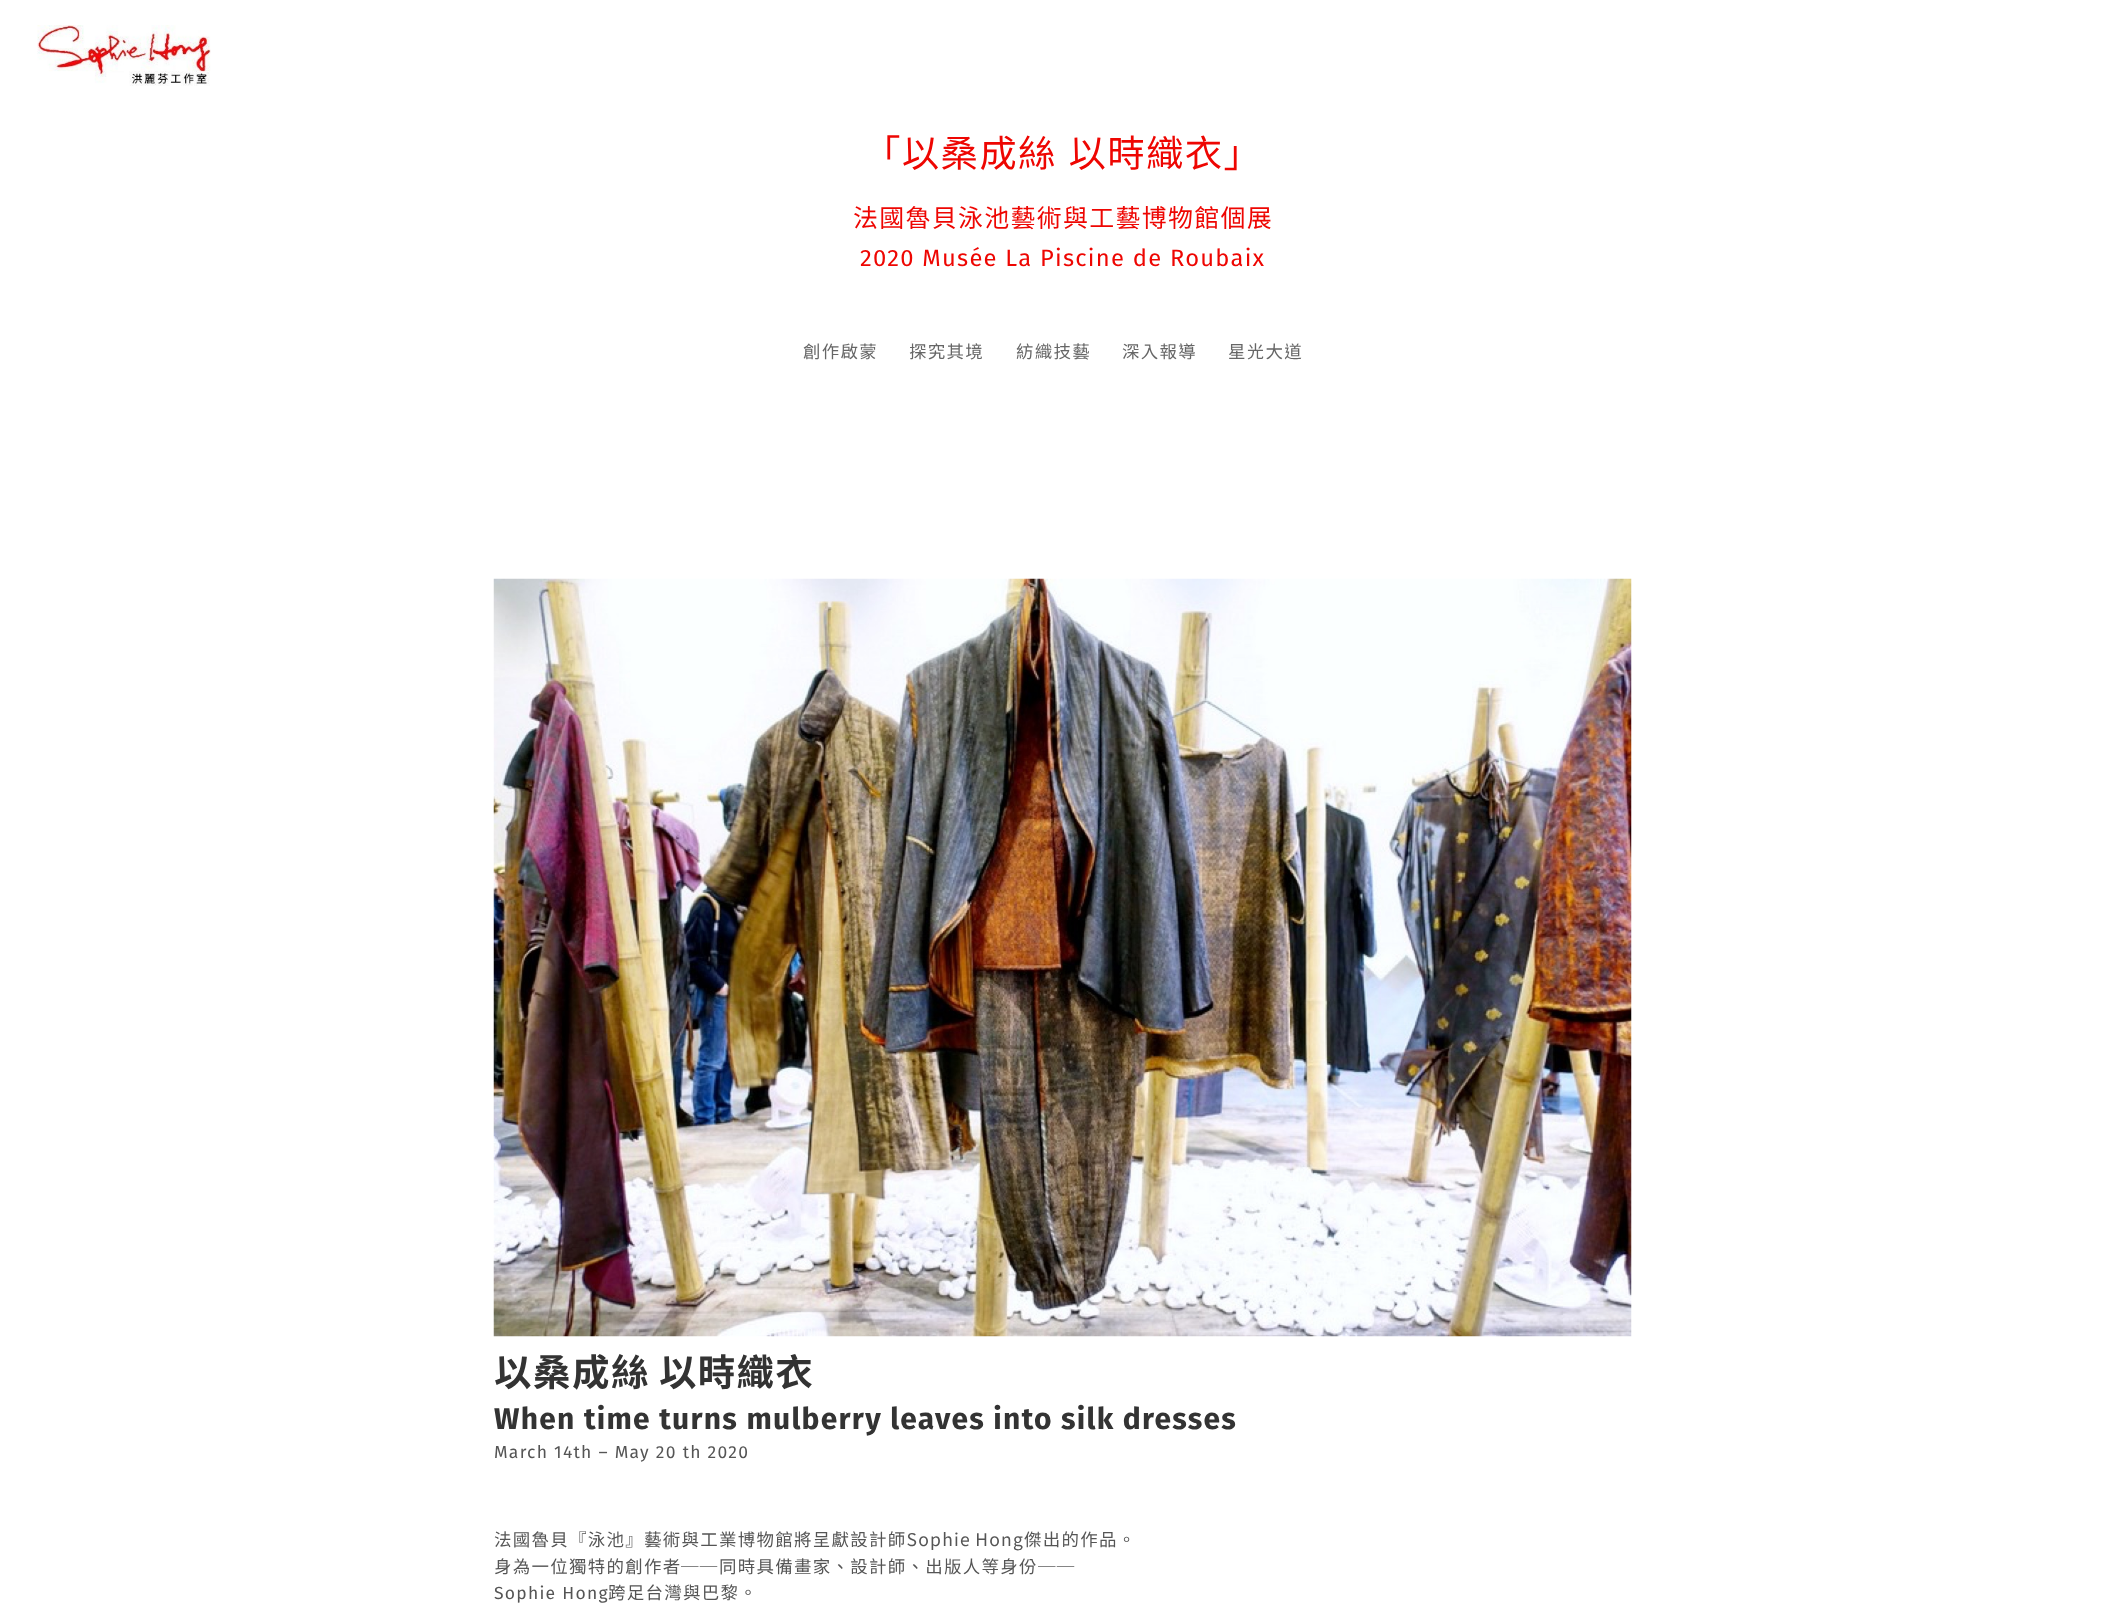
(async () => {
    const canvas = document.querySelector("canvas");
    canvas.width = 2124;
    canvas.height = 1614;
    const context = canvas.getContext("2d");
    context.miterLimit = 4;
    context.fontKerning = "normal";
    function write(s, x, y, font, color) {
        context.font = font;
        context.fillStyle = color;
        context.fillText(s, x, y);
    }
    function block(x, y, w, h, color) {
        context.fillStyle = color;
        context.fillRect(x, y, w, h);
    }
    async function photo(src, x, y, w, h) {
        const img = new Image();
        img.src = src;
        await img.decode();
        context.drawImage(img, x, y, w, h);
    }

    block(0, 0, 2124, 1614, "rgb(255, 255, 255)");
    await photo("media/1.png", 37, 25, 174, 61);
    context.letterSpacing = "1.25px";
    context.wordSpacing = "2px";
    write("「以桑成絲 以時織衣」", 863, 167, "37.5px Noto Sans TC", "rgb(238, 6, 2)");
    context.wordSpacing = "0px";
    write("法國魯貝泳池藝術與工藝博物館個展", 853, 227, "25px Noto Sans TC", "rgb(238, 6, 2)");
    write("2020 Musée La Piscine de Roubaix", 860, 266, "23.75px Fira Sans", "rgb(238, 6, 2)");
    write("創作啟蒙", 803, 358, "17.5px Noto Sans TC", "rgb(102, 102, 102)");
    write("探究其境", 909, 358, "17.5px Noto Sans TC", "rgb(102, 102, 102)");
    write("紡織技藝", 1016, 358, "17.5px Noto Sans TC", "rgb(102, 102, 102)");
    write("深入報導", 1122, 358, "17.5px Noto Sans TC", "rgb(102, 102, 102)");
    write("星光大道", 1228, 358, "17.5px Noto Sans TC", "rgb(102, 102, 102)");
    await photo("media/2.png", 493, 578, 1139, 759);
    context.letterSpacing = "1.5px";
    write("以桑成絲", 494, 1386, "bold 37.5px Noto Sans TC", "rgb(51, 51, 51)");
    context.letterSpacing = "1.25px";
    write("以時織衣", 659, 1386, "bold 37.5px Noto Sans TC", "rgb(51, 51, 51)");
    write("When time turns mulberry leaves into silk dresses", 494, 1429, "bold 30px Fira Sans", "rgb(51, 51, 51)");
    write("March 14th – May 20 th 2020", 494, 1458, "17.5px Fira Sans", "rgb(85, 85, 85)");
    context.wordSpacing = "-1px";
    write("法國魯貝『泳池』藝術與工業博物館將呈獻設計師Sophie Hong傑出的作品。", 494, 1546, "17.5px Noto Sans TC", "rgb(85, 85, 85)");
    context.wordSpacing = "0px";
    write("身為一位獨特的創作者", 494, 1573, "17.5px Noto Sans TC", "rgb(85, 85, 85)");
    write("──", 681, 1573, "100 17.5px Noto Sans SC", "rgb(85, 85, 85)");
    write("同時具備畫家、設計師、出版人等身份", 719, 1573, "17.5px Noto Sans TC", "rgb(85, 85, 85)");
    write("──", 1038, 1573, "100 17.5px Noto Sans SC", "rgb(85, 85, 85)");
    write("Sophie Hong", 494, 1599, "17.5px Fira Sans", "rgb(85, 85, 85)");
    write("跨足台灣與巴黎。", 608, 1599, "17.5px Noto Sans TC", "rgb(85, 85, 85)");
})();
